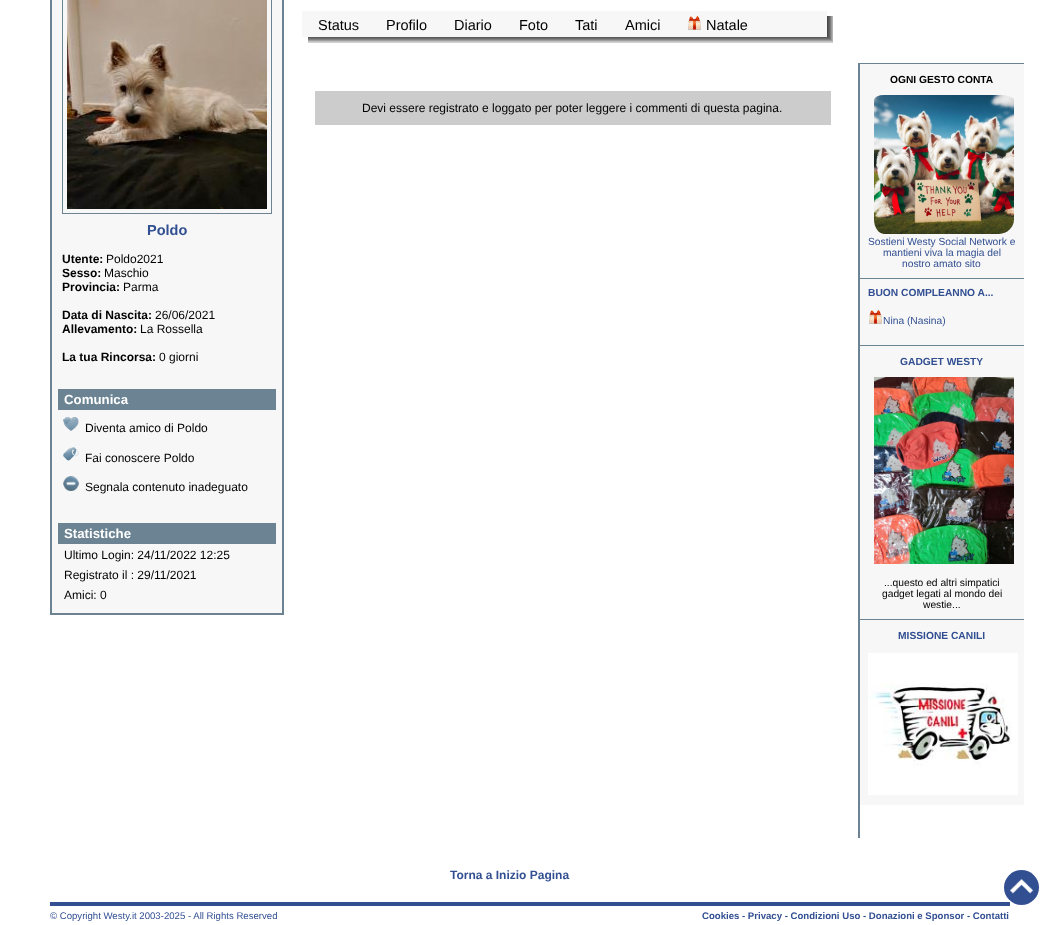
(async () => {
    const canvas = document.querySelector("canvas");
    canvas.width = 1059;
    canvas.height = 925;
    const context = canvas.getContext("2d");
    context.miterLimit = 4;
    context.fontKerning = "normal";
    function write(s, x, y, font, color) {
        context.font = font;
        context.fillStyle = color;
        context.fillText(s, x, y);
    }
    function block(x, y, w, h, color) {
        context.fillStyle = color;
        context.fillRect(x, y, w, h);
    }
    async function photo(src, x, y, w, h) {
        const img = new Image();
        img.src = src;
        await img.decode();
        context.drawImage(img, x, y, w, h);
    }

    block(0, 0, 1059, 925, "rgb(255, 255, 255)");
    await photo("media/1.png", 308, 16, 525, 27);
    block(302, 11, 525, 26, "rgb(247, 247, 247)");
    write("Status", 318, 30, "14.5px Liberation Sans", "rgb(0, 0, 0)");
    write("Profilo", 386, 30, "14.5px Liberation Sans", "rgb(0, 0, 0)");
    write("Diario", 454, 30, "14.5px Liberation Sans", "rgb(0, 0, 0)");
    write("Foto", 519, 30, "14.5px Liberation Sans", "rgb(0, 0, 0)");
    write("Tati", 575, 30, "14.5px Liberation Sans", "rgb(0, 0, 0)");
    write("Amici", 625, 30, "14.5px Liberation Sans", "rgb(0, 0, 0)");
    await photo("media/2.png", 688, 15, 13, 15);
    write("Natale", 706, 30, "14.5px Liberation Sans", "rgb(0, 0, 0)");
    block(315, 91, 516, 34, "rgb(204, 204, 204)");
    write("Devi essere registrato e loggato per poter leggere i commenti di questa pagina.", 362, 112, "12px Liberation Sans", "rgb(0, 0, 0)");
    block(858, 63, 2, 775, "rgb(107, 131, 146)");
    block(860, 64, 164, 214, "rgb(247, 247, 247)");
    block(860, 63, 164, 1, "rgb(107, 131, 146)");
    write("OGNI GESTO CONTA", 890, 83, "bold 10.25px Liberation Sans", "rgb(0, 0, 0)");
    await photo("media/3.png", 874, 95, 140, 139);
    write("Sostieni Westy Social Network e", 868, 245, "10.25px Liberation Sans", "rgb(50, 79, 146)");
    write("mantieni viva la magia del", 883, 256, "10.25px Liberation Sans", "rgb(50, 79, 146)");
    write("nostro amato sito", 902, 267, "10.25px Liberation Sans", "rgb(50, 79, 146)");
    block(860, 279, 164, 66, "rgb(247, 247, 247)");
    block(860, 278, 164, 1, "rgb(107, 131, 146)");
    write("BUON COMPLEANNO A...", 868, 296, "bold 10.25px Liberation Sans", "rgb(50, 79, 146)");
    await photo("media/2.png", 869, 309, 13, 15);
    write("Nina (Nasina)", 883, 324, "10.25px Liberation Sans", "rgb(50, 79, 146)");
    block(860, 346, 164, 273, "rgb(247, 247, 247)");
    block(860, 345, 164, 1, "rgb(107, 131, 146)");
    write("GADGET WESTY", 900, 365, "bold 10.25px Liberation Sans", "rgb(50, 79, 146)");
    await photo("media/4.png", 874, 377, 140, 187);
    write("...questo ed altri simpatici", 884, 586, "10.25px Liberation Sans", "rgb(0, 0, 0)");
    write("gadget legati al mondo dei", 882, 597, "10.25px Liberation Sans", "rgb(0, 0, 0)");
    write("westie...", 923, 608, "10.25px Liberation Sans", "rgb(0, 0, 0)");
    block(860, 620, 164, 185, "rgb(247, 247, 247)");
    block(860, 619, 164, 1, "rgb(107, 131, 146)");
    write("MISSIONE CANILI", 898, 639, "bold 10.25px Liberation Sans", "rgb(50, 79, 146)");
    await photo("media/5.png", 868, 653, 150, 142);
    context.fillStyle = "rgb(247, 247, 247)";
    context.beginPath();
    context.rect(51, -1, 232, 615);
    context.fill();
    context.strokeStyle = "rgb(107, 131, 146)";
    context.lineWidth = 2;
    context.stroke();
    context.lineWidth = 1;
    context.strokeRect(62.5, -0.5, 209, 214);
    await photo("media/6.png", 67, 0, 200, 209);
    write("Poldo", 147, 235, "bold 14.5px Liberation Sans", "rgb(50, 79, 146)");
    write("Utente:", 62, 263, "bold 12px Liberation Sans", "rgb(0, 0, 0)");
    write("Poldo2021", 106, 263, "12px Liberation Sans", "rgb(0, 0, 0)");
    write("Sesso:", 62, 277, "bold 12px Liberation Sans", "rgb(0, 0, 0)");
    write("Maschio", 104, 277, "12px Liberation Sans", "rgb(0, 0, 0)");
    write("Provincia:", 62, 291, "bold 12px Liberation Sans", "rgb(0, 0, 0)");
    write("Parma", 123, 291, "12px Liberation Sans", "rgb(0, 0, 0)");
    write("Data di Nascita:", 62, 319, "bold 12px Liberation Sans", "rgb(0, 0, 0)");
    write("26/06/2021", 155, 319, "12px Liberation Sans", "rgb(0, 0, 0)");
    write("Allevamento:", 62, 333, "bold 12px Liberation Sans", "rgb(0, 0, 0)");
    write("La Rossella", 140, 333, "12px Liberation Sans", "rgb(0, 0, 0)");
    write("La tua Rincorsa:", 62, 361, "bold 12px Liberation Sans", "rgb(0, 0, 0)");
    write("0 giorni", 159, 361, "12px Liberation Sans", "rgb(0, 0, 0)");
    block(58, 389, 218, 21, "rgb(107, 131, 146)");
    write("Comunica", 64, 404, "bold 13.25px Liberation Sans", "rgb(255, 255, 255)");
    await photo("media/7.png", 63, 417, 16, 14);
    write("Diventa amico di Poldo", 85, 432, "12px Liberation Sans", "rgb(0, 0, 0)");
    await photo("media/8.png", 63, 447, 16, 14);
    write("Fai conoscere Poldo", 85, 462, "12px Liberation Sans", "rgb(0, 0, 0)");
    await photo("media/9.png", 63, 476, 16, 15);
    write("Segnala contenuto inadeguato", 85, 491, "12px Liberation Sans", "rgb(0, 0, 0)");
    block(58, 523, 218, 21, "rgb(107, 131, 146)");
    write("Statistiche", 64, 538, "bold 13.25px Liberation Sans", "rgb(255, 255, 255)");
    write("Ultimo Login: 24/11/2022 12:25", 64, 559, "12px Liberation Sans", "rgb(0, 0, 0)");
    write("Registrato il : 29/11/2021", 64, 579, "12px Liberation Sans", "rgb(0, 0, 0)");
    write("Amici: 0", 64, 599, "12px Liberation Sans", "rgb(0, 0, 0)");
    write("Torna a Inizio Pagina", 450, 879, "bold 12px Liberation Sans", "rgb(50, 79, 146)");
    block(50, 902, 960, 4, "rgb(50, 79, 146)");
    context.beginPath();
    context.arc(1021.5, 887.5, 17.5, 0, Math.PI * 2);
    context.fill();
    await photo("media/10.png", 1005, 870, 33, 35);
    write("© Copyright Westy.it 2003-2025 - All Rights Reserved", 50, 919, "9.6px Liberation Sans", "rgb(50, 79, 146)");
    write("Cookies - Privacy - Condizioni Uso - Donazioni e Sponsor - Contatti", 702, 919, "bold 9.6px Liberation Sans", "rgb(50, 79, 146)");
})();
